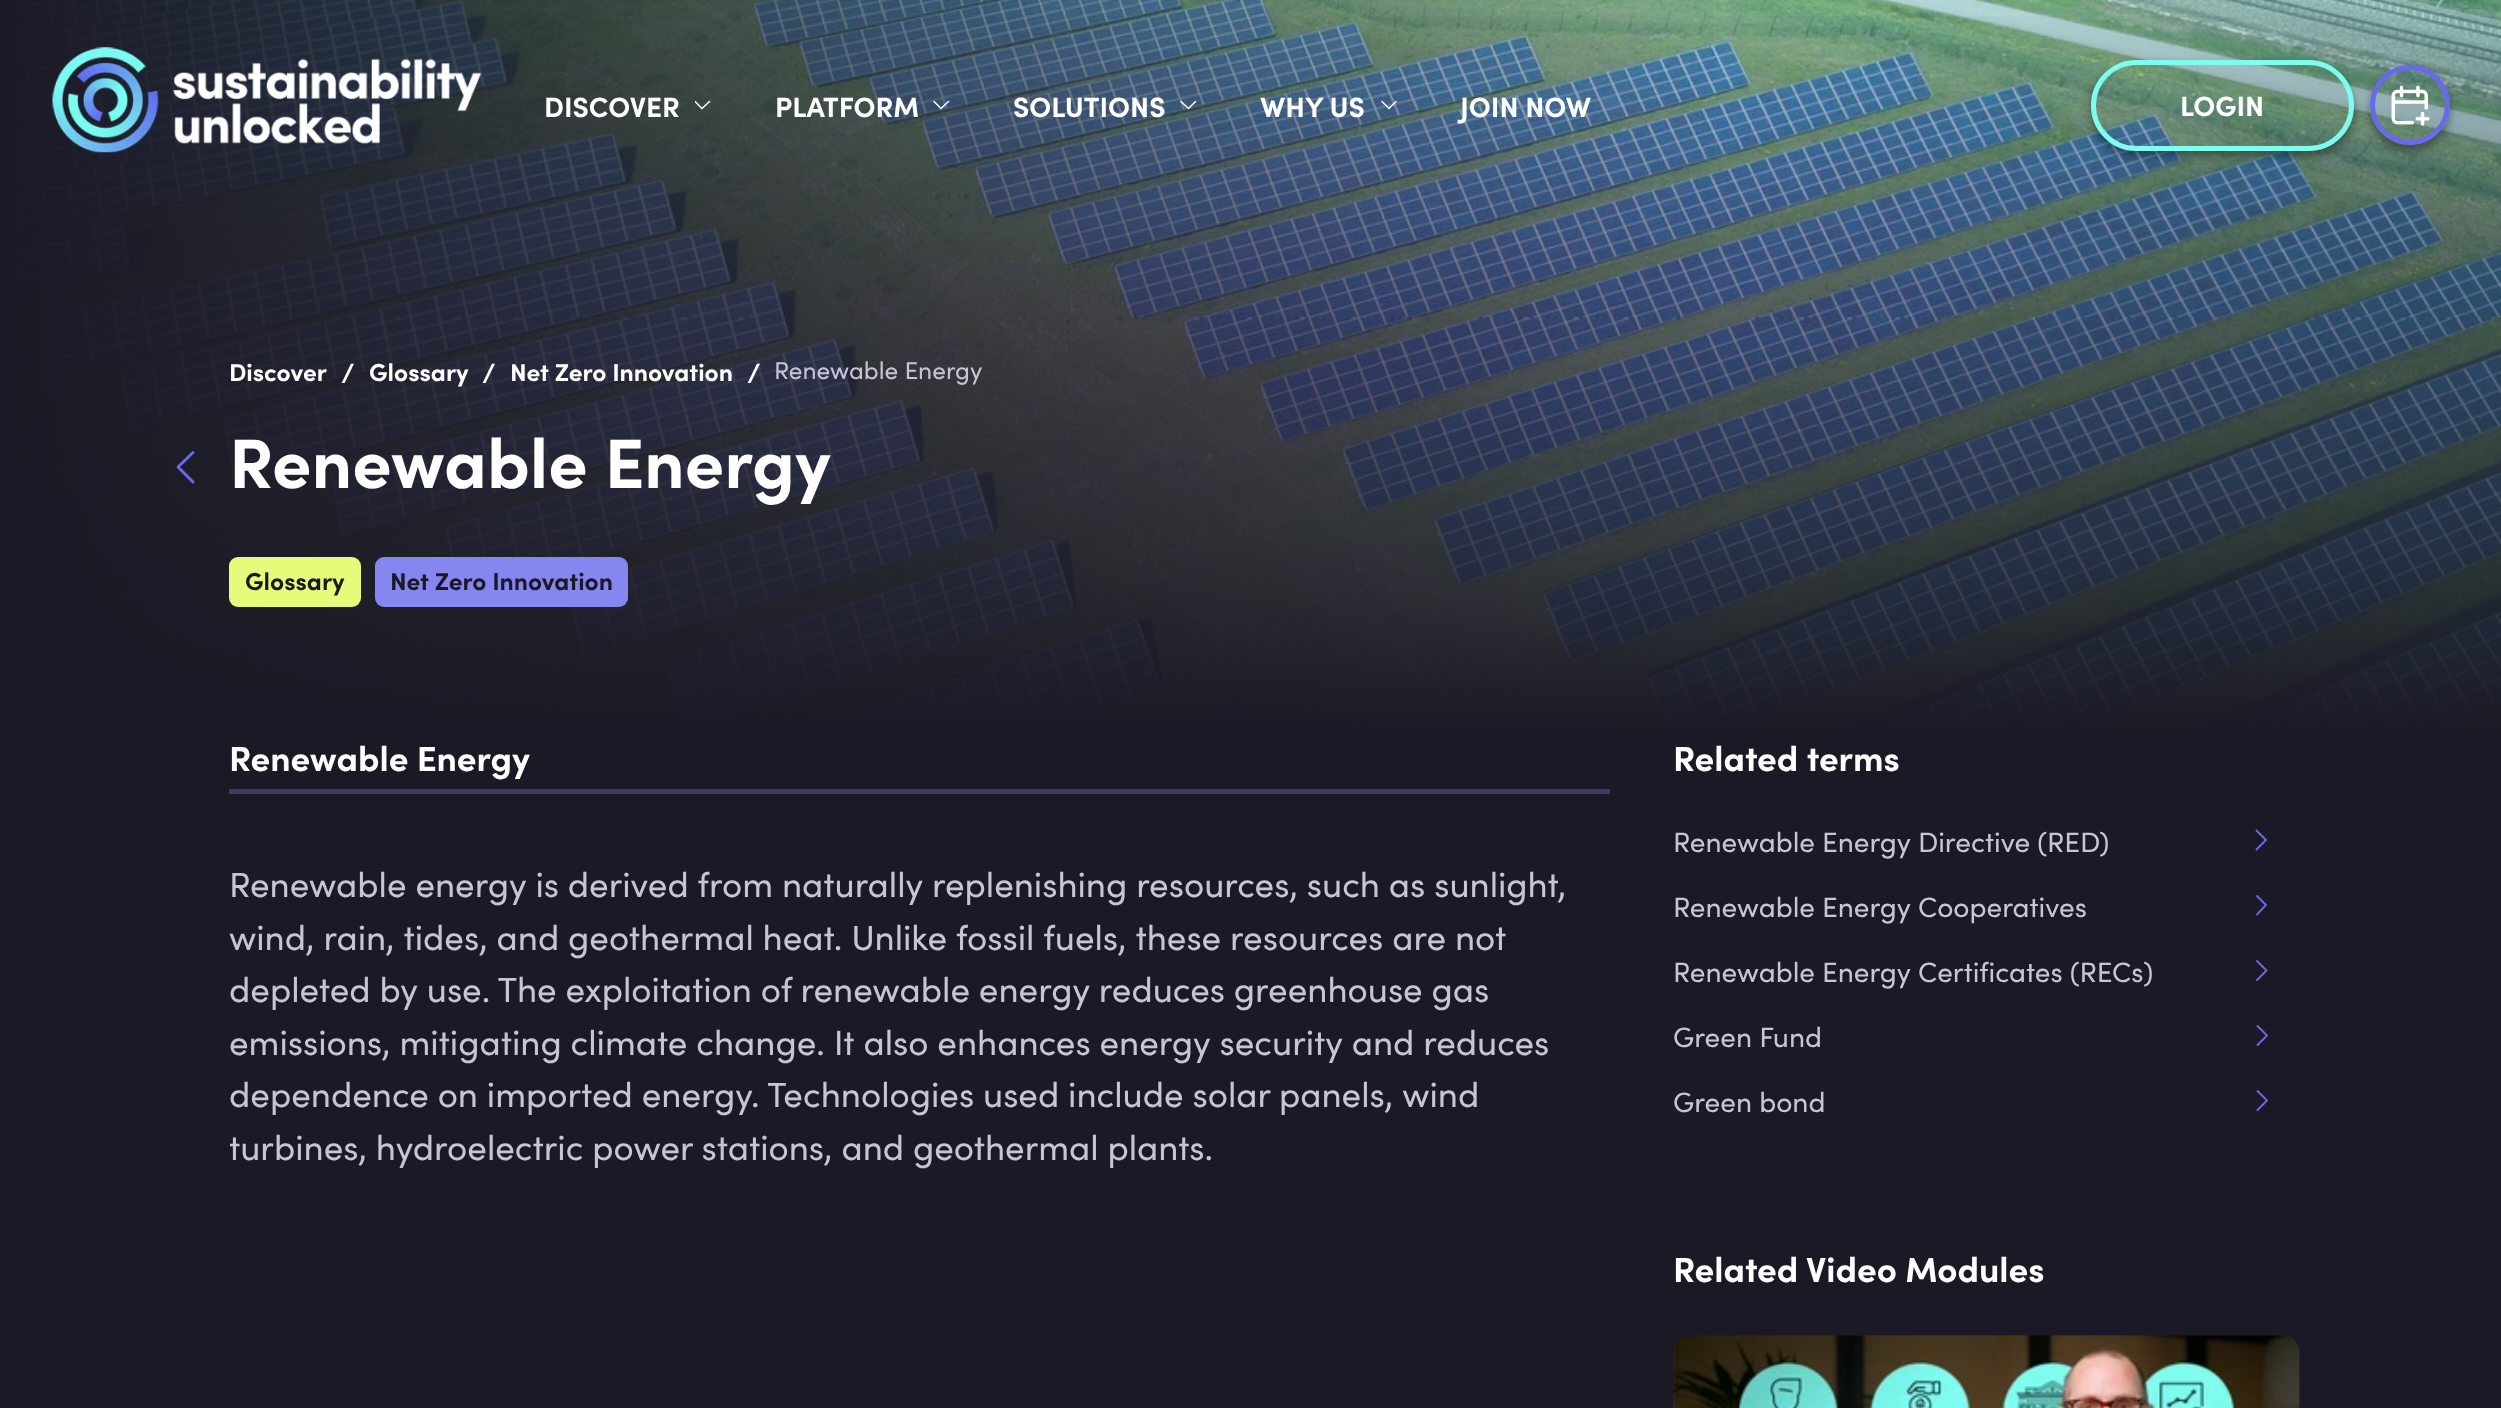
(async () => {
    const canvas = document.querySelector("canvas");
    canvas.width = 2501;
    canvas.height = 1408;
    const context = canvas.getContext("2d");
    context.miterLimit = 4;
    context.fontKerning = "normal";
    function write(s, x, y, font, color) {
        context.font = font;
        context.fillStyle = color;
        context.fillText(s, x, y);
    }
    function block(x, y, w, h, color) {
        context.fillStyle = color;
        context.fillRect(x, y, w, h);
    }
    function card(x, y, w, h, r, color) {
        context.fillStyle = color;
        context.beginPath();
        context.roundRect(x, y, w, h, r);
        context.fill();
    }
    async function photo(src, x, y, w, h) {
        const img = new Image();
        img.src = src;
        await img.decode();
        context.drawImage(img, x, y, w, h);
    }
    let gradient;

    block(0, 0, 2501, 1408, "rgb(27, 25, 37)");
    await photo("media/3.png", 10, 0, 2491, 729);
    gradient = context.createRadialGradient(1251, 1602.31, 0, 1251, 1602.31, 2052);
    gradient.addColorStop(0, "rgba(134, 134, 241, 0.4)");
    gradient.addColorStop(1, "rgba(126, 252, 240, 0.4)");
    context.fillStyle = gradient;
    context.beginPath();
    context.rect(10, 0, 2491, 729);
    context.save();
    context.clip();
    context.scale(1, 470 / 2052);
    context.fillRect(0, 0, 2501, 6148);
    context.restore();
    gradient = context.createLinearGradient(0, 367, 1752, 367);
    gradient.addColorStop(0, "rgb(27, 25, 37)");
    gradient.addColorStop(1, "rgba(27, 25, 37, 0)");
    context.fillStyle = gradient;
    context.fillRect(10, 0, 1704, 729);
    gradient = context.createLinearGradient(1251, 733, 1251, 0);
    gradient.addColorStop(0, "rgb(27, 25, 37)");
    gradient.addColorStop(1, "rgba(27, 25, 37, 0)");
    context.fillStyle = gradient;
    context.fillRect(27, 16, 2474, 713);
    await photo("media/1.png", 52, 47, 430, 106);
    write("DISCOVER", 544, 117, "bold 28px Sofia", "rgb(255, 255, 255)");
    context.save();
    context.beginPath();
    context.rect(695, 95, 17, 21);
    context.clip();
    context.beginPath();
    context.moveTo(695, 101.5);
    context.lineTo(702, 108.5);
    context.lineTo(709.5, 101.5);
    context.strokeStyle = "rgb(255, 255, 255)";
    context.lineWidth = 1.5;
    context.lineCap = "round";
    context.lineJoin = "round";
    context.stroke();
    context.restore();
    write("PLATFORM", 775, 117, "bold 28px Sofia", "rgb(255, 255, 255)");
    context.beginPath();
    context.moveTo(934, 101.5);
    context.lineTo(941, 108.5);
    context.lineTo(948.5, 101.5);
    context.strokeStyle = "rgb(255, 255, 255)";
    context.lineWidth = 1.5;
    context.lineCap = "round";
    context.lineJoin = "round";
    context.stroke();
    write("SOLUTIONS", 1013, 117, "bold 28px Sofia", "rgb(255, 255, 255)");
    context.beginPath();
    context.moveTo(1181, 101.5);
    context.lineTo(1188.5, 108.5);
    context.lineTo(1195.5, 101.5);
    context.stroke();
    write("WHY US", 1260, 117, "bold 28px Sofia", "rgb(255, 255, 255)");
    context.beginPath();
    context.moveTo(1382, 101.5);
    context.lineTo(1389, 108.5);
    context.lineTo(1396, 101.5);
    context.lineWidth = 1.4;
    context.stroke();
    write("JOIN NOW", 1460, 117, "bold 28px Sofia", "rgb(255, 255, 255)");
    context.save();
    context.beginPath();
    context.moveTo(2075, 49);
    context.lineTo(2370, 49);
    context.lineTo(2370, 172);
    context.lineTo(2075, 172);
    context.closePath();
    context.moveTo(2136.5, 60);
    context.lineTo(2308.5, 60);
    context.bezierCurveTo(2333.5, 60, 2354, 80.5, 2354, 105.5);
    context.bezierCurveTo(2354, 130.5, 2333.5, 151, 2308.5, 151);
    context.lineTo(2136.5, 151);
    context.bezierCurveTo(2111.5, 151, 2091, 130.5, 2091, 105.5);
    context.bezierCurveTo(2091, 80.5, 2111.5, 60, 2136.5, 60);
    context.closePath();
    context.clip("evenodd");
    context.fillStyle = "rgba(0, 0, 0, 0.4)";
    context.filter = "blur(5px)";
    context.beginPath();
    context.roundRect(2091, 65, 263, 91, 45.5);
    context.fill();
    context.filter = "none";
    context.restore();
    context.beginPath();
    context.roundRect(2093.5, 62.5, 258, 86, 43);
    context.strokeStyle = "rgb(126, 252, 240)";
    context.lineWidth = 5;
    context.lineJoin = "miter";
    context.stroke();
    write("LOGIN", 2180, 116, "bold 28px Sofia", "rgb(255, 255, 255)");
    context.save();
    context.beginPath();
    context.moveTo(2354, 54);
    context.lineTo(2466, 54);
    context.lineTo(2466, 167);
    context.lineTo(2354, 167);
    context.closePath();
    context.moveTo(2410, 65);
    context.bezierCurveTo(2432, 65, 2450, 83, 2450, 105);
    context.bezierCurveTo(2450, 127, 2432, 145, 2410, 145);
    context.bezierCurveTo(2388, 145, 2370, 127, 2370, 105);
    context.bezierCurveTo(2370, 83, 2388, 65, 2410, 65);
    context.closePath();
    context.clip("evenodd");
    context.fillStyle = "rgba(0, 0, 0, 0.4)";
    context.filter = "blur(5px)";
    context.beginPath();
    context.roundRect(2370, 70, 80, 81, 40);
    context.fill();
    context.filter = "none";
    context.restore();
    context.beginPath();
    context.arc(2410, 105, 37.5, 0, Math.PI * 2);
    context.strokeStyle = "rgb(104, 105, 237)";
    context.stroke();
    await photo("media/2.png", 2391, 85, 39, 41);
    write("Discover", 229, 381, "bold 24.5px Sofia", "rgb(255, 255, 255)");
    write("/", 341, 383, "bold 28px Sofia", "rgb(255, 255, 255)");
    write("Glossary", 369, 381, "bold 24.5px Sofia", "rgb(255, 255, 255)");
    write("/", 482, 383, "bold 28px Sofia", "rgb(255, 255, 255)");
    write("Net Zero Innovation", 510, 381, "bold 24.5px Sofia", "rgb(255, 255, 255)");
    write("/", 747, 383, "bold 28px Sofia", "rgb(255, 255, 255)");
    write("Renewable Energy", 774, 379, "24.5px Sofia", "rgb(201, 196, 212)");
    context.beginPath();
    context.moveTo(193, 452.5);
    context.lineTo(178, 467);
    context.lineTo(193, 482);
    context.lineWidth = 2.9;
    context.lineJoin = "round";
    context.stroke();
    write("Renewable Energy", 229, 488, "bold 70px Sofia", "rgb(255, 255, 255)");
    card(229, 557, 132, 50, 9, "rgb(230, 251, 122)");
    write("Glossary", 245, 590, "bold 24.5px Sofia", "rgb(27, 25, 37)");
    card(375, 557, 253, 50, 9, "rgb(134, 134, 241)");
    write("Net Zero Innovation", 390, 590, "bold 24.5px Sofia", "rgb(27, 25, 37)");
    block(229, 789, 1381, 5, "rgb(59, 58, 98)");
    write("Renewable Energy", 229, 771, "bold 35px Sofia", "rgb(255, 255, 255)");
    write("Renewable energy is derived from naturally replenishing resources, such as sunlight,", 229, 897, "35px Sofia", "rgb(201, 196, 212)");
    write("wind, rain, tides, and geothermal heat. Unlike fossil fuels, these resources are not", 229, 950, "35px Sofia", "rgb(201, 196, 212)");
    write("depleted by use. The exploitation of renewable energy reduces greenhouse gas", 229, 1002, "35px Sofia", "rgb(201, 196, 212)");
    write("emissions, mitigating climate change. It also enhances energy security and reduces", 229, 1055, "35px Sofia", "rgb(201, 196, 212)");
    write("dependence on imported energy. Technologies used include solar panels, wind", 229, 1107, "35px Sofia", "rgb(201, 196, 212)");
    write("turbines, hydroelectric power stations, and geothermal plants.", 229, 1160, "35px Sofia", "rgb(201, 196, 212)");
    write("Related terms", 1673, 771, "bold 35px Sofia", "rgb(255, 255, 255)");
    write("Renewable Energy Directive (RED)", 1673, 852, "28px Sofia", "rgb(201, 196, 212)");
    context.beginPath();
    context.moveTo(2256.5, 849.5);
    context.lineTo(2266, 840);
    context.lineTo(2256.5, 830.5);
    context.lineWidth = 1.9;
    context.stroke();
    write("Renewable Energy Cooperatives", 1673, 917, "28px Sofia", "rgb(201, 196, 212)");
    context.beginPath();
    context.moveTo(2257, 914.5);
    context.lineTo(2266, 905);
    context.lineTo(2257, 896);
    context.stroke();
    write("Renewable Energy Certificates (RECs)", 1673, 982, "28px Sofia", "rgb(201, 196, 212)");
    context.beginPath();
    context.moveTo(2257, 980);
    context.lineTo(2266.5, 970.5);
    context.lineTo(2257, 961);
    context.stroke();
    write("Green Fund", 1673, 1047, "28px Sofia", "rgb(201, 196, 212)");
    context.beginPath();
    context.moveTo(2257.5, 1045);
    context.lineTo(2267, 1035.5);
    context.lineTo(2257.5, 1026);
    context.stroke();
    write("Green bond", 1673, 1112, "28px Sofia", "rgb(201, 196, 212)");
    context.beginPath();
    context.moveTo(2257.5, 1110);
    context.lineTo(2267, 1100.5);
    context.lineTo(2257.5, 1091);
    context.stroke();
    write("Related Video Modules", 1673, 1282, "bold 35px Sofia", "rgb(255, 255, 255)");
    card(1673, 1335, 627, 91, 18, "rgb(35, 32, 46)");
    await photo("media/4.png", 1673, 1335, 627, 73);
})();
